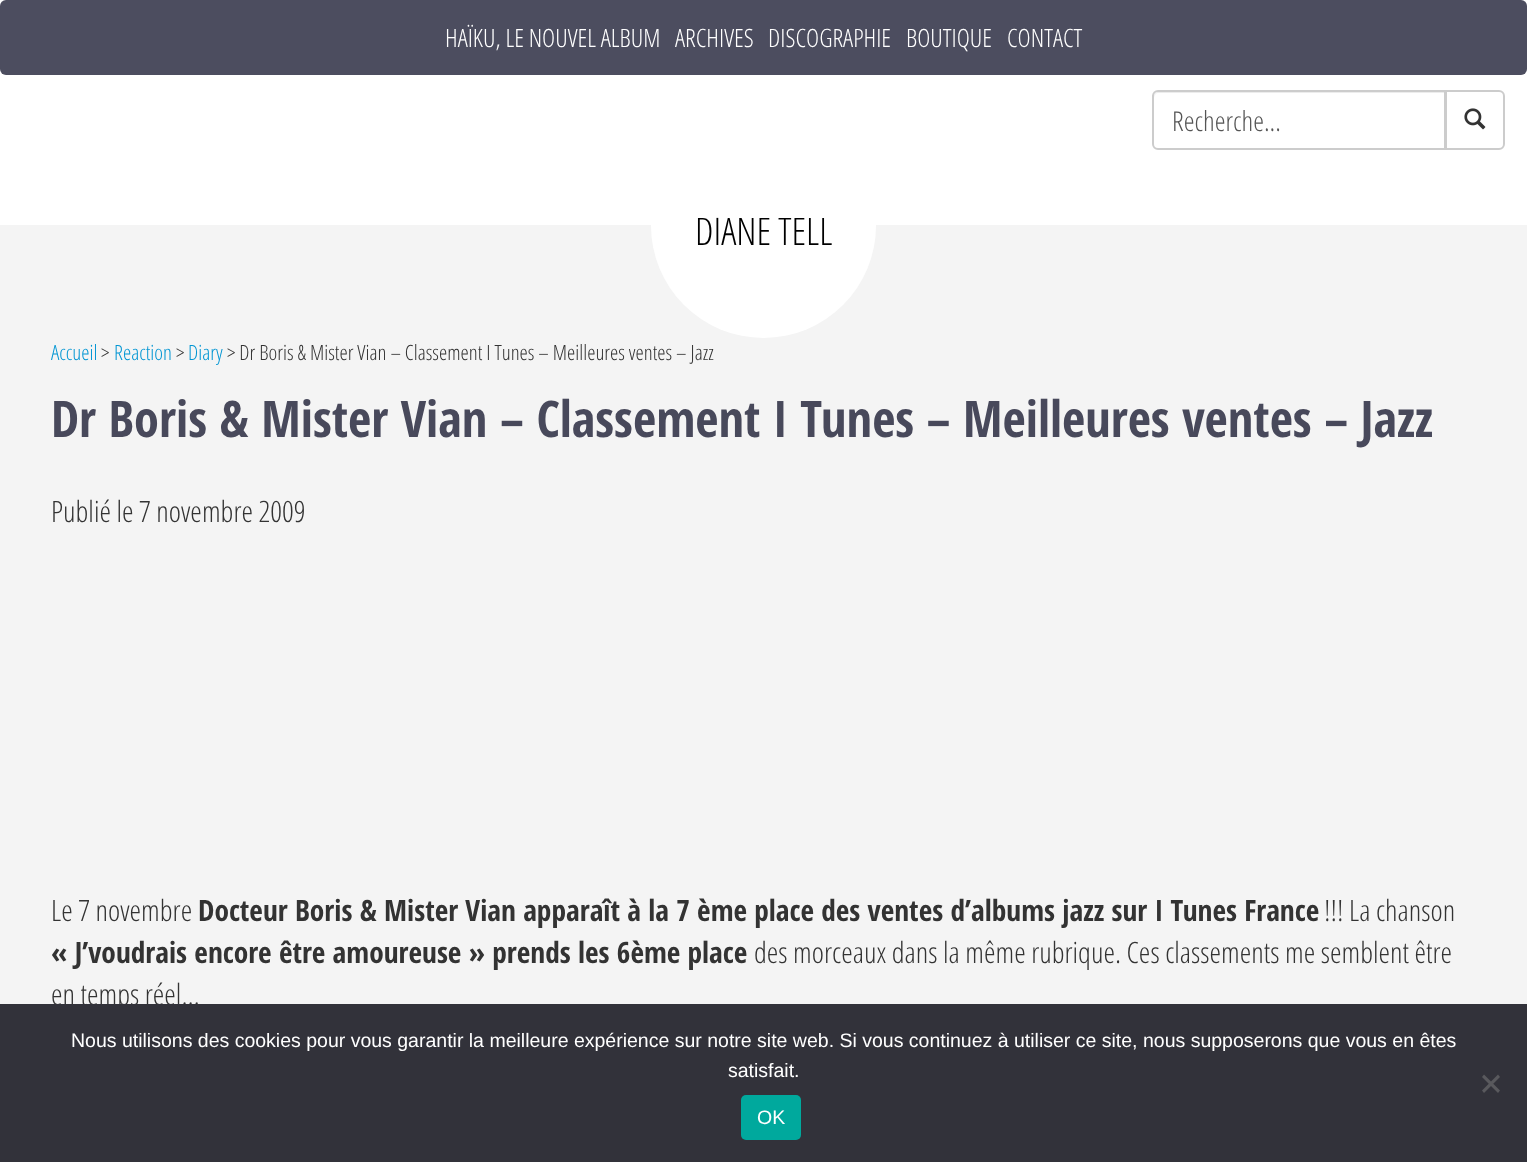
(async () => {
    const canvas = document.querySelector("canvas");
    canvas.width = 1527;
    canvas.height = 1162;
    const context = canvas.getContext("2d");
    context.miterLimit = 4;
    context.fontKerning = "normal";
    function write(s, x, y, font, color) {
        context.font = font;
        context.fillStyle = color;
        context.fillText(s, x, y);
    }
    function block(x, y, w, h, color) {
        context.fillStyle = color;
        context.fillRect(x, y, w, h);
    }
    function card(x, y, w, h, r, color) {
        context.fillStyle = color;
        context.beginPath();
        context.roundRect(x, y, w, h, r);
        context.fill();
    }
    async function photo(src, x, y, w, h) {
        const img = new Image();
        img.src = src;
        await img.decode();
        context.drawImage(img, x, y, w, h);
    }

    block(0, 0, 1527, 1162, "rgb(244, 244, 244)");
    block(0, 0, 1527, 225, "rgb(255, 255, 255)");
    card(0, 0, 1527, 75, 6, "rgb(76, 77, 95)");
    write("HAÏKU, LE NOUVEL ALBUM", 445, 47, "300 25.25px Open Sans Condensed", "rgb(255, 255, 255)");
    write("ARCHIVES", 675, 47, "300 25.25px Open Sans Condensed", "rgb(255, 255, 255)");
    write("DISCOGRAPHIE", 768, 47, "300 25.25px Open Sans Condensed", "rgb(255, 255, 255)");
    write("BOUTIQUE", 906, 47, "300 25.25px Open Sans Condensed", "rgb(255, 255, 255)");
    write("CONTACT", 1007, 47, "300 25.25px Open Sans Condensed", "rgb(255, 255, 255)");
    context.beginPath();
    context.roundRect(1446, 91, 58, 58, [0, 5, 5, 0]);
    context.strokeStyle = "rgb(204, 204, 204)";
    context.lineWidth = 2;
    context.stroke();
    context.beginPath();
    context.roundRect(1152, 90, 294, 60, [6, 0, 0, 6]);
    context.fill();
    context.fillStyle = "rgb(236, 236, 236)";
    context.beginPath();
    context.moveTo(1158, 93);
    context.lineTo(1444, 93);
    context.lineTo(1444, 149);
    context.lineTo(1445, 149);
    context.lineTo(1445, 92);
    context.lineTo(1159, 92);
    context.bezierCurveTo(1156, 92, 1154, 94, 1154, 97);
    context.lineTo(1154, 98);
    context.bezierCurveTo(1154, 95, 1156, 93, 1158, 93);
    context.closePath();
    context.fill();
    context.beginPath();
    context.roundRect(1153, 91, 292, 58, [5, 0, 0, 5]);
    context.stroke();
    write("Recherche...", 1172, 131, "300 27.5px Open Sans Condensed", "rgb(85, 85, 85)");
    await photo("media/1.png", 1464, 108, 22, 22);
    context.fillStyle = "rgb(255, 255, 255)";
    context.beginPath();
    context.arc(763.5, 225.5, 112.5, 0, Math.PI * 2);
    context.fill();
    write("DIANE TELL", 695, 245, "300 38px Open Sans Condensed", "rgb(0, 0, 0)");
    write("Accueil", 51, 360, "300 21px Open Sans Condensed", "rgb(1, 149, 211)");
    write(">", 101, 360, "300 21px Open Sans Condensed", "rgb(51, 51, 51)");
    write("Reaction", 114, 360, "300 21px Open Sans Condensed", "rgb(1, 149, 211)");
    write(">", 176, 360, "300 21px Open Sans Condensed", "rgb(51, 51, 51)");
    write("Diary", 188, 360, "300 21px Open Sans Condensed", "rgb(1, 149, 211)");
    write("> Dr Boris & Mister Vian – Classement I Tunes – Meilleures ventes – Jazz", 227, 360, "300 21px Open Sans Condensed", "rgb(51, 51, 51)");
    write("Dr Boris & Mister Vian", 51, 437, "bold 50.4px Open Sans Condensed", "rgb(72, 73, 91)");
    write("– Classement I Tunes – Meilleures ventes – Jazz", 500, 437, "bold 50.4px Open Sans Condensed", "rgb(72, 73, 91)");
    write("Publié le 7 novembre 2009", 51, 522, "300 29.4px Open Sans Condensed", "rgb(51, 51, 51)");
    write("Le 7 novembre", 51, 921, "300 29.4px Open Sans Condensed", "rgb(51, 51, 51)");
    write("Docteur Boris & Mister Vian apparaît à la 7 ème place des ventes d’albums jazz sur I Tunes France", 198, 921, "bold 29.4px Open Sans Condensed", "rgb(51, 51, 51)");
    write("!!! La chanson", 1324, 921, "300 29.4px Open Sans Condensed", "rgb(51, 51, 51)");
    write("« J’voudrais encore être amoureuse » prends les 6ème place", 51, 963, "bold 29.4px Open Sans Condensed", "rgb(51, 51, 51)");
    write("des morceaux dans la même rubrique. Ces classements me semblent être", 754, 963, "300 29.4px Open Sans Condensed", "rgb(51, 51, 51)");
    write("en temps réel…", 51, 1005, "300 29.4px Open Sans Condensed", "rgb(51, 51, 51)");
    block(0, 1004, 1527, 158, "rgb(50, 50, 58)");
    write("Nous utilisons des cookies pour vous garantir la meilleure expérience sur notre site web. Si vous continuez à utiliser ce site, nous supposerons que vous en êtes", 71, 1047, "19.5px Liberation Sans", "rgb(255, 255, 255)");
    write("satisfait.", 728, 1077, "19.5px Liberation Sans", "rgb(255, 255, 255)");
    context.fillStyle = "rgb(89, 89, 93)";
    context.beginPath();
    context.moveTo(1498, 1074.5);
    context.lineTo(1500, 1077);
    context.lineTo(1484, 1093);
    context.lineTo(1482, 1090.5);
    context.closePath();
    context.fill();
    context.beginPath();
    context.moveTo(1482, 1077);
    context.lineTo(1484, 1074.5);
    context.lineTo(1500, 1090.5);
    context.lineTo(1498, 1093);
    context.closePath();
    context.fill();
    card(741, 1095, 60, 45, 5, "rgb(0, 169, 157)");
    write("OK", 757, 1124, "19.5px Liberation Sans", "rgb(255, 255, 255)");
})();
